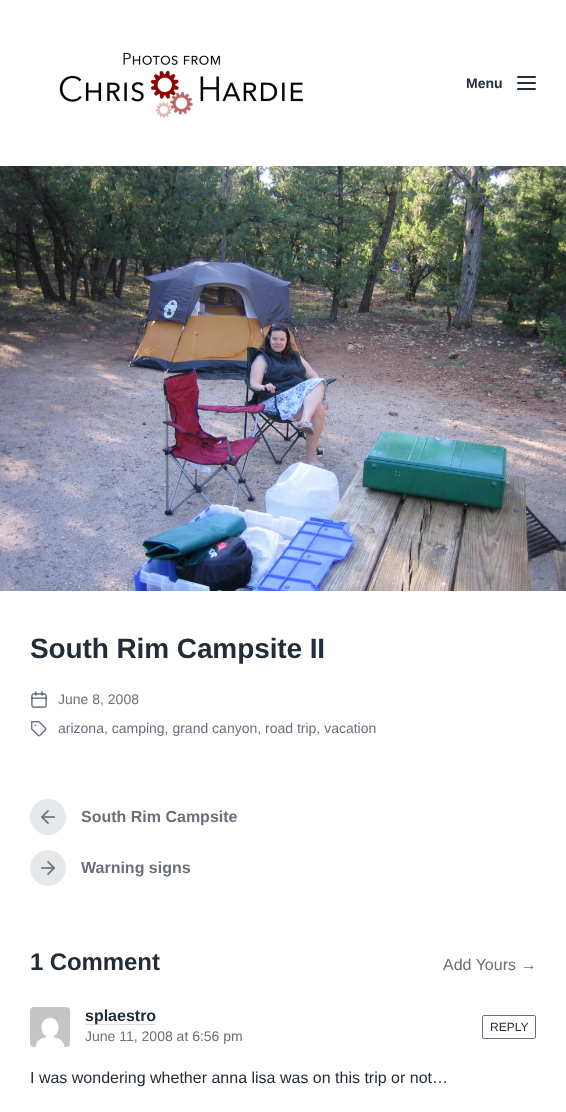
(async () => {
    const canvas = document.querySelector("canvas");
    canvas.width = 566;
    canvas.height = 1112;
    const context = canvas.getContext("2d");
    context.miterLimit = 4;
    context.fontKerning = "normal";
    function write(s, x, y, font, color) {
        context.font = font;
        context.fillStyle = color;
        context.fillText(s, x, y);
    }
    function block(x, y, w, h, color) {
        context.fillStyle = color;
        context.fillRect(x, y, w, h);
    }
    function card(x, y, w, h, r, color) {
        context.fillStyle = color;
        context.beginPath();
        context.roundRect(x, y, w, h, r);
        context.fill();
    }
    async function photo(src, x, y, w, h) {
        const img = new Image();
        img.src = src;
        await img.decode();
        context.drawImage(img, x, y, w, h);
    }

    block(0, 0, 566, 1112, "rgb(255, 255, 255)");
    await photo("media/1.png", 59, 52, 244, 66);
    write("Menu", 466, 88, "bold 14px Liberation Sans", "rgb(35, 45, 55)");
    card(517, 76, 19, 2, 1, "rgb(35, 45, 55)");
    card(517, 82, 19, 2, 1, "rgb(35, 45, 55)");
    card(517, 88, 19, 2, 1, "rgb(35, 45, 55)");
    await photo("media/2.png", 0, 166, 566, 425);
    context.letterSpacing = "-0.1px";
    write("South Rim Campsite II", 30, 658, "bold 28px Liberation Sans", "rgb(35, 45, 55)");
    await photo("media/3.png", 31, 691, 16, 17);
    context.letterSpacing = "0px";
    write("June 8, 2008", 58, 704, "14px Liberation Sans", "rgb(104, 113, 123)");
    await photo("media/4.png", 31, 721, 16, 16);
    write("arizona, camping, grand canyon, road trip, vacation", 58, 733, "14px Liberation Sans", "rgb(104, 113, 123)");
    context.fillStyle = "rgb(230, 233, 236)";
    context.beginPath();
    context.arc(48, 817, 18, 0, Math.PI * 2);
    context.fill();
    await photo("media/5.png", 41, 810, 14, 14);
    write("South Rim Campsite", 81, 822, "bold 16px Liberation Sans", "rgb(104, 113, 123)");
    context.fillStyle = "rgb(230, 233, 236)";
    context.beginPath();
    context.arc(48, 868, 18, 0, Math.PI * 2);
    context.fill();
    await photo("media/6.png", 41, 861, 14, 14);
    write("Warning signs", 81, 873, "bold 16px Liberation Sans", "rgb(104, 113, 123)");
    context.letterSpacing = "-0.1px";
    write("1 Comment", 30, 970, "bold 24px Liberation Sans", "rgb(35, 45, 55)");
    context.letterSpacing = "0px";
    write("Add Yours →", 443, 970, "16px Liberation Sans", "rgb(104, 113, 123)");
    await photo("media/7.png", 30, 1007, 40, 40);
    block(85, 1024, 71, 1, "rgb(220, 223, 226)");
    write("splaestro", 85, 1021, "bold 16px Liberation Sans", "rgb(35, 45, 55)");
    write("June 11, 2008 at 6:56 pm", 85, 1041, "14px Liberation Sans", "rgb(104, 113, 123)");
    context.beginPath();
    context.roundRect(482.5, 1015.5, 53, 23, 1.5);
    context.strokeStyle = "rgb(104, 113, 123)";
    context.stroke();
    write("REPLY", 490, 1031, "12px Liberation Sans", "rgb(35, 45, 55)");
    write("I was wondering whether anna lisa was on this trip or not…", 30, 1083, "16px Liberation Sans", "rgb(35, 45, 55)");
})();
